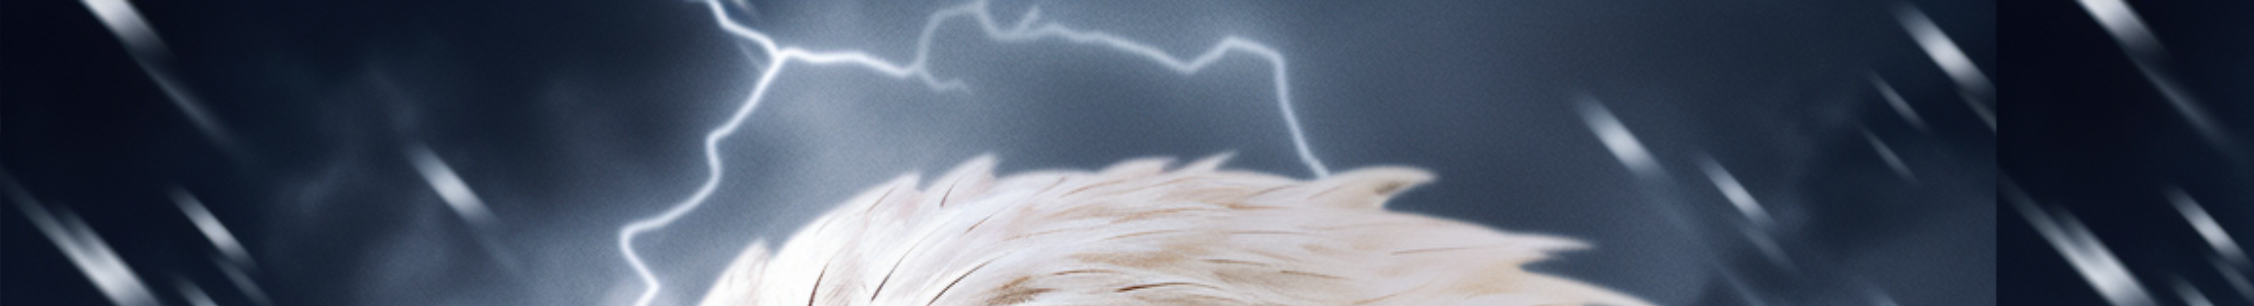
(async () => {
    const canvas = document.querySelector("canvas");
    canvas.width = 2254;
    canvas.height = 306;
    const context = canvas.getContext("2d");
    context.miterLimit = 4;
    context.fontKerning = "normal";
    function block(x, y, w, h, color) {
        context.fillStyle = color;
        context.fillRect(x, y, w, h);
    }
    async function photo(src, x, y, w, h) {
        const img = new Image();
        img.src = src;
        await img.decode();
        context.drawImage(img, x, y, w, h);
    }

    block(0, 0, 2254, 306, "rgb(255, 255, 255)");
    await photo("media/1.png", 0, 0, 2254, 306);
})();
